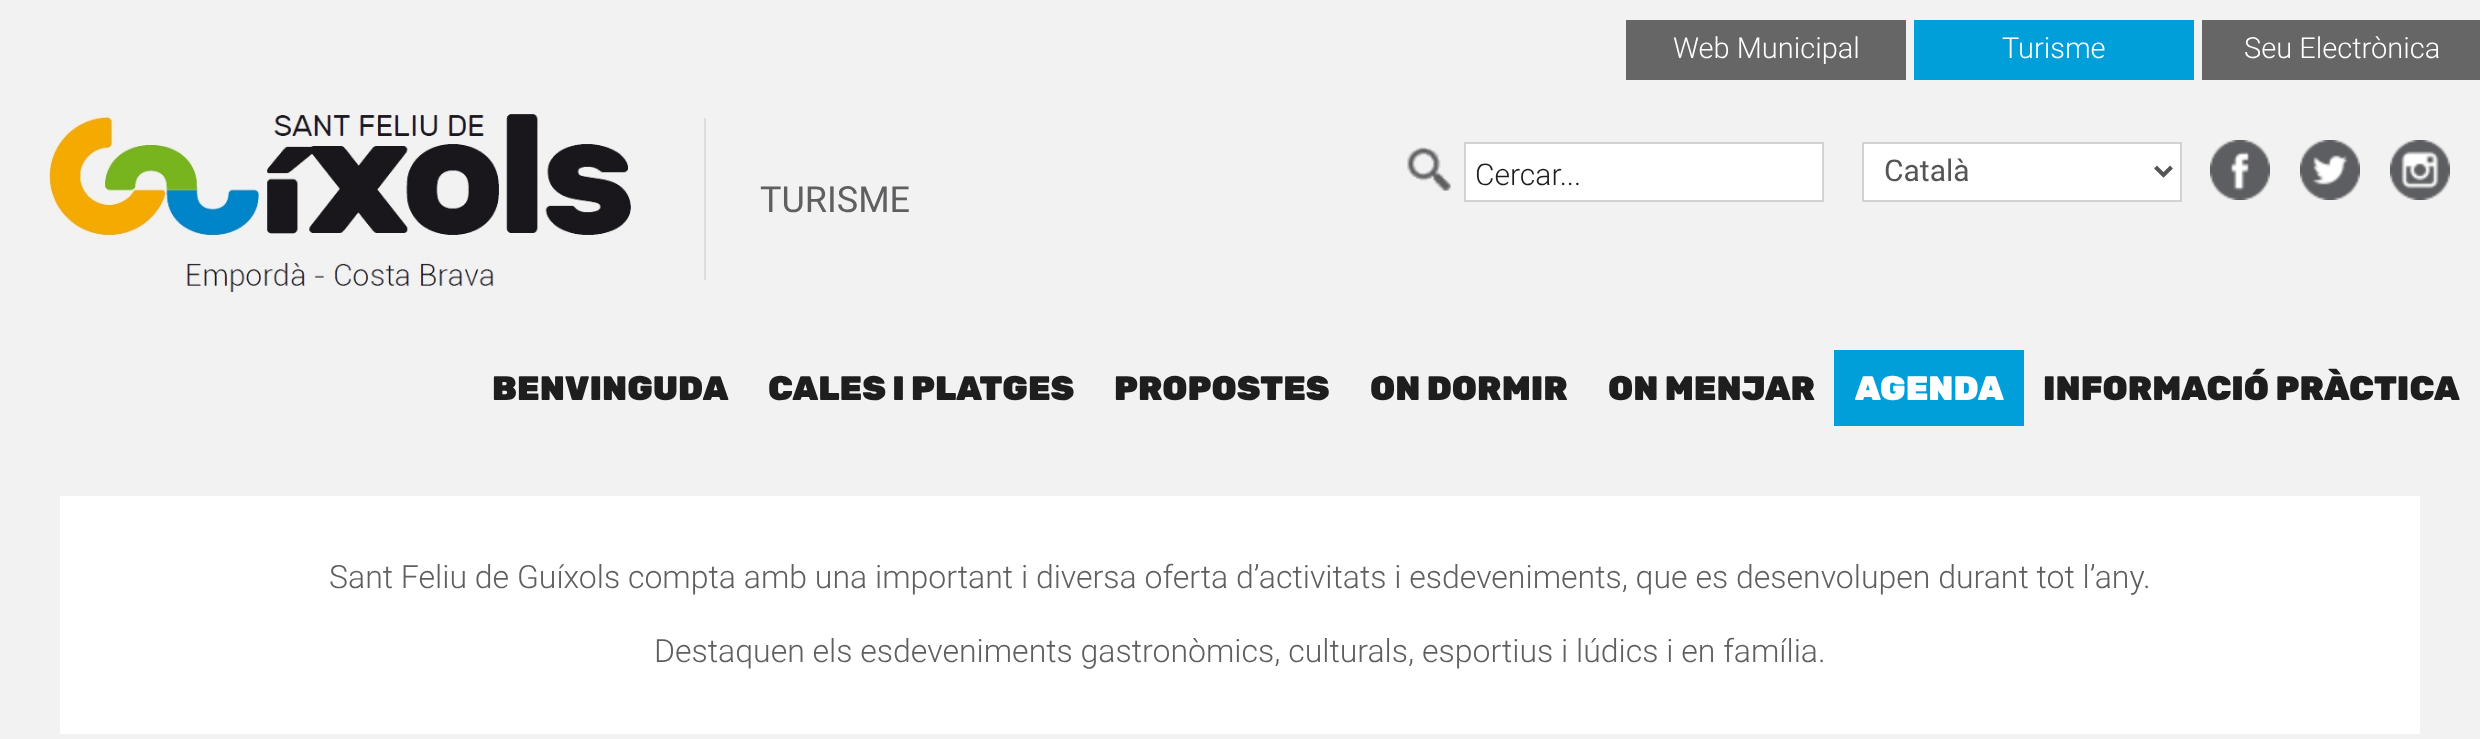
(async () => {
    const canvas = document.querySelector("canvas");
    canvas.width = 2480;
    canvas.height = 739;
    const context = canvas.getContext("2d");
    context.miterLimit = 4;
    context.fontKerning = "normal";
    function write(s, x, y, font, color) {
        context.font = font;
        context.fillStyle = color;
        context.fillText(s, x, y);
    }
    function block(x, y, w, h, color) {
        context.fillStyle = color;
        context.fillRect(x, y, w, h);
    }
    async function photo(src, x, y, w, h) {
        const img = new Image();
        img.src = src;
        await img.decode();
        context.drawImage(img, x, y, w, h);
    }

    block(0, 0, 2480, 739, "rgb(242, 242, 242)");
    block(1626, 20, 280, 60, "rgb(102, 102, 102)");
    write("Web Municipal", 1673, 58, "300 29px Roboto", "rgb(255, 255, 255)");
    block(1914, 20, 280, 60, "rgb(0, 159, 218)");
    write("Turisme", 2002, 58, "300 29px Roboto", "rgb(255, 255, 255)");
    block(2202, 20, 278, 60, "rgb(102, 102, 102)");
    write("Seu Electrònica", 2244, 58, "300 29px Roboto", "rgb(255, 255, 255)");
    await photo("media/1.png", 1407, 147, 44, 44);
    context.beginPath();
    context.rect(1465, 143, 358, 58);
    context.fill();
    context.strokeStyle = "rgb(210, 210, 210)";
    context.lineWidth = 2;
    context.stroke();
    write("Cercar...", 1475, 185, "300 30px Roboto", "rgb(30, 30, 30)");
    context.fillStyle = "rgb(255, 255, 255)";
    context.beginPath();
    context.rect(1863, 143, 318, 58);
    context.fill();
    context.stroke();
    context.beginPath();
    context.moveTo(2155.5, 167);
    context.lineTo(2163.5, 175);
    context.lineTo(2171.5, 167);
    context.strokeStyle = "rgb(85, 85, 85)";
    context.lineWidth = 4;
    context.stroke();
    write("Català", 1884, 181, "30px Roboto", "rgb(85, 85, 85)");
    await photo("media/2.png", 2210, 140, 60, 60);
    await photo("media/3.png", 2300, 140, 60, 60);
    await photo("media/4.png", 2390, 140, 60, 60);
    await photo("media/5.png", 48, 113, 583, 180);
    write("TURISME", 760, 212, "36px Roboto", "rgb(94, 95, 97)");
    block(704, 118, 2, 162, "rgb(221, 221, 221)");
    write("BENVINGUDA", 492, 400, "900 34px Rubik", "rgb(30, 30, 30)");
    write("CALES I PLATGES", 768, 400, "900 34px Rubik", "rgb(30, 30, 30)");
    write("PROPOSTES", 1114, 400, "900 34px Rubik", "rgb(30, 30, 30)");
    write("ON DORMIR", 1370, 400, "900 34px Rubik", "rgb(30, 30, 30)");
    write("ON MENJAR", 1608, 400, "900 34px Rubik", "rgb(30, 30, 30)");
    block(1834, 350, 190, 76, "rgb(0, 159, 218)");
    write("AGENDA", 1855, 400, "900 34px Rubik", "rgb(255, 255, 255)");
    write("INFORMACIÓ PRÀCTICA", 2043, 400, "900 34px Rubik", "rgb(30, 30, 30)");
    block(60, 496, 2360, 238, "rgb(255, 255, 255)");
    write("Sant Feliu de Guíxols compta amb una important i diversa oferta d’activitats i esdeveniments, que es desenvolupen durant tot l’any.", 329, 588, "300 32px Roboto", "rgb(94, 95, 97)");
    write("Destaquen els esdeveniments gastronòmics, culturals, esportius i lúdics i en família.", 654, 662, "300 32px Roboto", "rgb(94, 95, 97)");
})();
